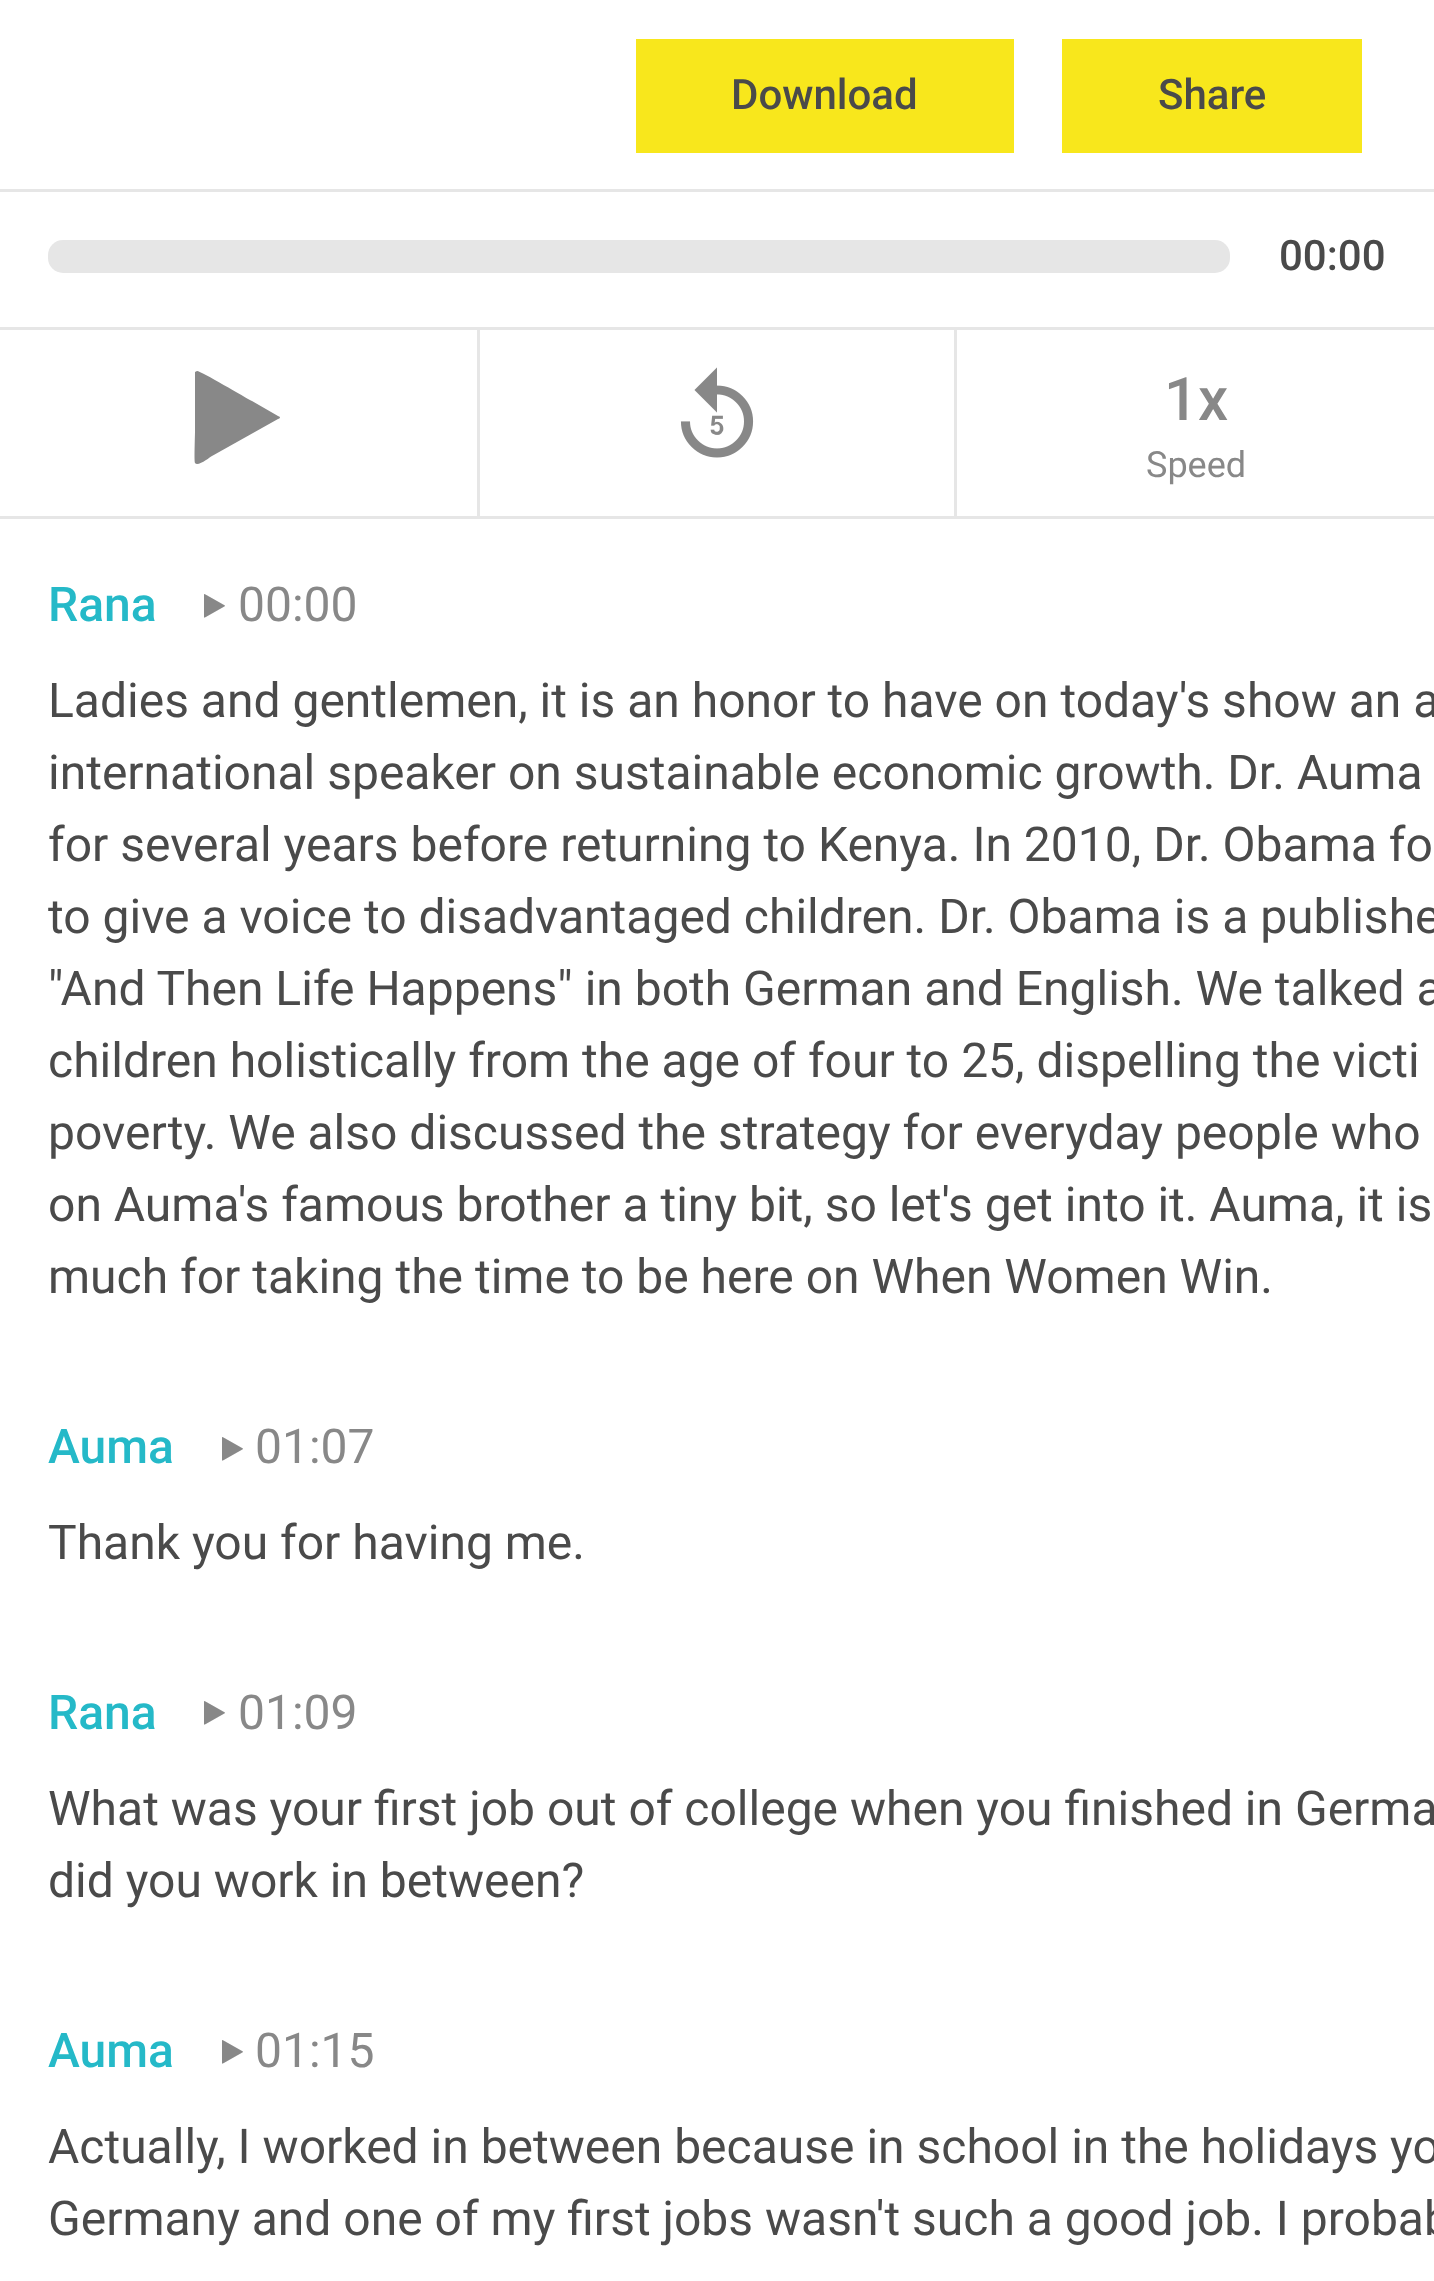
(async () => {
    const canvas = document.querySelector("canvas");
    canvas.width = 1434;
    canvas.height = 2281;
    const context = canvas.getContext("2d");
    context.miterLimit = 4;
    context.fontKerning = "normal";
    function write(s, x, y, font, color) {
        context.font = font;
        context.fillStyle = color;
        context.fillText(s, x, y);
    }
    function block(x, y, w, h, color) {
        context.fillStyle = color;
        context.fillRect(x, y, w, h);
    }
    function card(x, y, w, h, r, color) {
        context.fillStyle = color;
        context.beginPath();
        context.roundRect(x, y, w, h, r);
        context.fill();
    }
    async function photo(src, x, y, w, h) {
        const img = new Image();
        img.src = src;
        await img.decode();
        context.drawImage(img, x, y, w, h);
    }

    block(0, 0, 1434, 2281, "rgb(255, 255, 255)");
    block(0, 189, 1434, 3, "rgb(230, 230, 230)");
    block(636, 39, 378, 114, "rgb(248, 231, 28)");
    write("Download", 731, 109, "500 42px Roboto", "rgb(74, 74, 74)");
    block(1062, 39, 300, 114, "rgb(248, 231, 28)");
    write("Share", 1158, 109, "500 42px Roboto", "rgb(74, 74, 74)");
    card(48, 240, 1182, 33, 15, "rgb(230, 230, 230)");
    write("00:00", 1279, 270, "500 42px Roboto", "rgb(74, 74, 74)");
    block(0, 327, 1434, 3, "rgb(230, 230, 230)");
    block(477, 327, 3, 192, "rgb(230, 230, 230)");
    block(0, 516, 480, 3, "rgb(230, 230, 230)");
    context.fillStyle = "rgb(136, 136, 136)";
    context.beginPath();
    context.moveTo(278, 419);
    context.lineTo(212, 456);
    context.bezierCurveTo(210, 457, 198, 467, 195, 463);
    context.bezierCurveTo(194, 461, 195, 435, 195, 432);
    context.lineTo(195, 372);
    context.lineTo(197, 371);
    context.bezierCurveTo(199, 370, 246, 398, 252, 401);
    context.lineTo(278, 416);
    context.lineTo(280, 417);
    context.bezierCurveTo(280, 418, 279, 419, 278, 419);
    context.closePath();
    context.fill();
    block(954, 327, 3, 192, "rgb(230, 230, 230)");
    block(480, 516, 954, 3, "rgb(230, 230, 230)");
    await photo("media/1.png", 680, 367, 74, 91);
    write("1x", 1164, 420, "500 60px Roboto", "rgb(136, 136, 136)");
    write("Speed", 1146, 477, "36px Roboto", "rgb(136, 136, 136)");
    write("Rana", 48, 621, "500 48px Roboto", "rgb(37, 185, 200)");
    await photo("media/2.png", 204, 594, 21, 24);
    write("00:00", 238, 621, "48px Roboto", "rgb(136, 136, 136)");
    write("Ladies and gentlemen, it is an honor to have on today's show an a", 48, 717, "48px Roboto", "rgb(74, 74, 74)");
    write("international speaker on sustainable economic growth. Dr. Auma", 48, 789, "48px Roboto", "rgb(74, 74, 74)");
    write("for several years before returning to Kenya. In 2010, Dr. Obama fo", 48, 861, "48px Roboto", "rgb(74, 74, 74)");
    write("to give a voice to disadvantaged children. Dr. Obama is a publishe", 48, 933, "48px Roboto", "rgb(74, 74, 74)");
    write("\"And Then Life Happens\" in both German and English. We talked a", 48, 1005, "48px Roboto", "rgb(74, 74, 74)");
    write("children holistically from the age of four to 25, dispelling the victi", 48, 1077, "48px Roboto", "rgb(74, 74, 74)");
    write("poverty. We also discussed the strategy for everyday people who", 48, 1149, "48px Roboto", "rgb(74, 74, 74)");
    write("on Auma's famous brother a tiny bit, so let's get into it. Auma, it is", 48, 1221, "48px Roboto", "rgb(74, 74, 74)");
    write("much for taking the time to be here on When Women Win.", 48, 1293, "48px Roboto", "rgb(74, 74, 74)");
    write("Auma", 48, 1463, "500 48px Roboto", "rgb(37, 185, 200)");
    await photo("media/2.png", 222, 1437, 21, 24);
    write("01:07", 255, 1463, "48px Roboto", "rgb(136, 136, 136)");
    write("Thank you for having me.", 48, 1559, "48px Roboto", "rgb(74, 74, 74)");
    write("Rana", 48, 1729, "500 48px Roboto", "rgb(37, 185, 200)");
    await photo("media/2.png", 204, 1701, 21, 24);
    write("01:09", 238, 1729, "48px Roboto", "rgb(136, 136, 136)");
    write("What was your first job out of college when you finished in Germa", 48, 1825, "48px Roboto", "rgb(74, 74, 74)");
    write("did you work in between?", 48, 1897, "48px Roboto", "rgb(74, 74, 74)");
    write("Auma", 48, 2067, "500 48px Roboto", "rgb(37, 185, 200)");
    await photo("media/2.png", 222, 2040, 21, 24);
    write("01:15", 255, 2067, "48px Roboto", "rgb(136, 136, 136)");
    write("Actually, I worked in between because in school in the holidays yo", 48, 2163, "48px Roboto", "rgb(74, 74, 74)");
    write("Germany and one of my first jobs wasn't such a good job. I probab", 48, 2235, "48px Roboto", "rgb(74, 74, 74)");
})();
